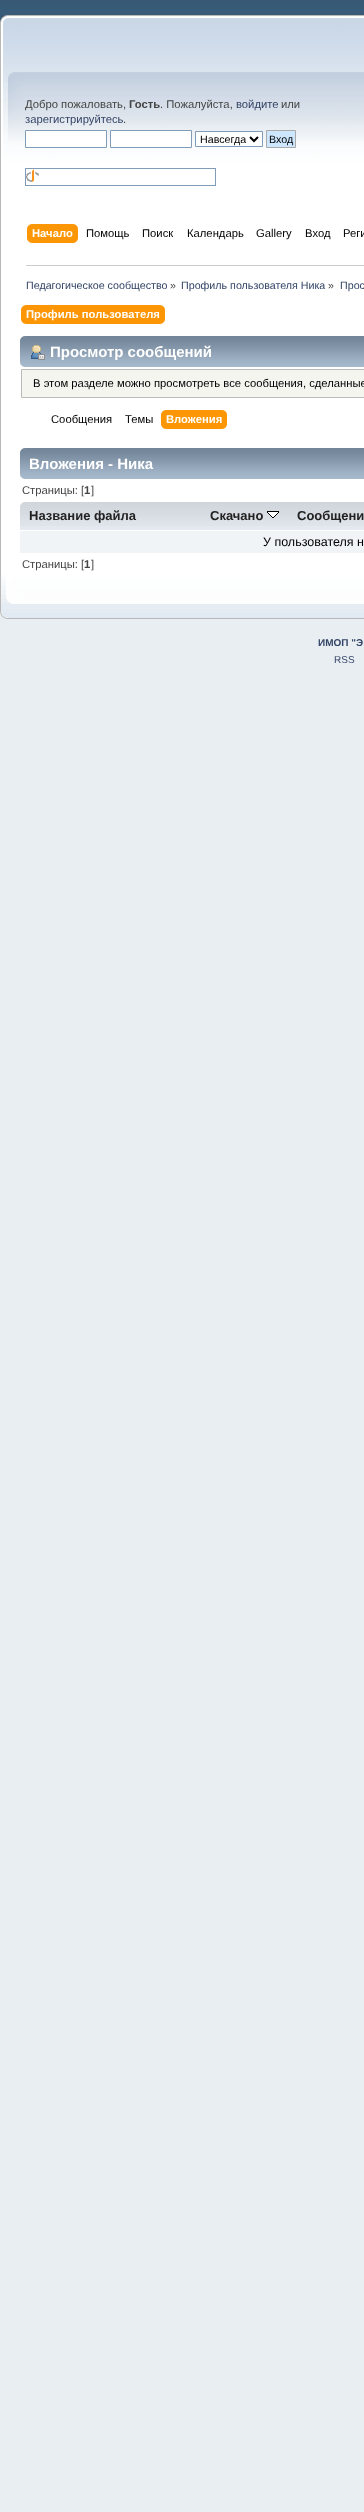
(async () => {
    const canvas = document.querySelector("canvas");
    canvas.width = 364;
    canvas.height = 2512;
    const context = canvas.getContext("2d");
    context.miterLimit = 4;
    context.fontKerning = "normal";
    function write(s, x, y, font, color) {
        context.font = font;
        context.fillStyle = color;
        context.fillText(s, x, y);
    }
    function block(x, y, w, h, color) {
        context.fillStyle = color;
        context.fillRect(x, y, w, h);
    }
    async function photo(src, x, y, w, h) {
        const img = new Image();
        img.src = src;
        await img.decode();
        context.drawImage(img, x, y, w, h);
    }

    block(0, 0, 364, 2512, "rgb(233, 238, 242)");
    await photo("media/1.png", 0, 0, 364, 15);
    await photo("media/2.png", 0, 15, 364, 244);
    write("Добро пожаловать,", 25, 108, "11.25px Liberation Sans", "rgb(68, 68, 68)");
    write("Гость", 129, 108, "bold 11.25px Liberation Sans", "rgb(68, 68, 68)");
    write(". Пожалуйста,", 160, 108, "11.25px Liberation Sans", "rgb(68, 68, 68)");
    write("войдите", 236, 108, "11.25px Liberation Sans", "rgb(51, 68, 102)");
    write("или", 281, 108, "11.25px Liberation Sans", "rgb(68, 68, 68)");
    write("зарегистрируйтесь", 25, 123, "11.25px Liberation Sans", "rgb(51, 68, 102)");
    write(".", 123, 123, "11.25px Liberation Sans", "rgb(68, 68, 68)");
    context.fillStyle = "rgb(255, 255, 255)";
    context.beginPath();
    context.rect(25.5, 130.5, 81, 17);
    context.fill();
    context.strokeStyle = "rgb(127, 157, 185)";
    context.stroke();
    context.beginPath();
    context.rect(110.5, 130.5, 81, 17);
    context.fill();
    context.stroke();
    context.beginPath();
    context.rect(195.5, 131.5, 67, 15);
    context.fill();
    context.stroke();
    context.beginPath();
    context.moveTo(250, 137);
    context.lineTo(254, 141);
    context.lineTo(258, 137);
    context.strokeStyle = "rgb(0, 0, 0)";
    context.lineWidth = 2;
    context.stroke();
    write("Навсегда", 200, 143, "10.7px Liberation Sans", "rgb(0, 0, 0)");
    context.fillStyle = "rgb(205, 231, 255)";
    context.beginPath();
    context.rect(266.5, 130.5, 29, 17);
    context.fill();
    context.strokeStyle = "rgb(170, 170, 170)";
    context.lineWidth = 1;
    context.stroke();
    write("Вход", 269, 143, "10.7px Liberation Sans", "rgb(0, 0, 0)");
    await photo("media/3.png", 26, 169, 13, 13);
    context.strokeStyle = "rgb(127, 157, 185)";
    context.strokeRect(25.5, 168.5, 190, 17);
    await photo("media/4.png", 32, 224, 46, 19);
    await photo("media/5.png", 27, 224, 5, 19);
    write("Начало", 32, 237, "bold 11.25px Liberation Sans", "rgb(255, 255, 255)");
    write("Помощь", 86, 237, "11.25px Liberation Sans", "rgb(0, 0, 0)");
    write("Поиск", 142, 237, "11.25px Liberation Sans", "rgb(0, 0, 0)");
    write("Календарь", 187, 237, "11.25px Liberation Sans", "rgb(0, 0, 0)");
    write("Gallery", 256, 237, "11.25px Liberation Sans", "rgb(0, 0, 0)");
    write("Вход", 305, 237, "11.25px Liberation Sans", "rgb(0, 0, 0)");
    write("Реги", 343, 237, "11.25px Liberation Sans", "rgb(0, 0, 0)");
    block(1, 259, 363, 316, "rgb(255, 255, 255)");
    block(0, 259, 1, 316, "rgb(183, 183, 183)");
    block(26, 265, 338, 1, "rgb(204, 204, 204)");
    write("Педагогическое сообщество", 26, 289, "10.7px Liberation Sans", "rgb(51, 68, 102)");
    write("»", 170, 289, "10.7px Liberation Sans", "rgb(68, 68, 68)");
    write("Профиль пользователя Ника", 181, 289, "10.7px Liberation Sans", "rgb(51, 68, 102)");
    write("»", 328, 289, "10.7px Liberation Sans", "rgb(68, 68, 68)");
    write("Прос", 340, 289, "10.7px Liberation Sans", "rgb(51, 68, 102)");
    await photo("media/6.png", 26, 305, 139, 19);
    await photo("media/5.png", 21, 305, 5, 19);
    write("Профиль пользователя", 26, 318, "bold 11.25px Liberation Sans", "rgb(255, 255, 255)");
    await photo("media/7.png", 20, 336, 344, 31);
    await photo("media/8.png", 31, 345, 14, 15);
    write("Просмотр сообщений", 50, 357, "bold 15px Liberation Sans", "rgb(255, 255, 255)");
    context.fillStyle = "rgb(245, 245, 240)";
    context.beginPath();
    context.rect(21.5, 369.5, 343, 28);
    context.fill();
    context.strokeStyle = "rgb(187, 187, 187)";
    context.stroke();
    write("В этом разделе можно просмотреть все сообщения, сделанные", 33, 387, "11.25px Liberation Sans", "rgb(0, 0, 0)");
    write("Сообщения", 51, 423, "11.25px Liberation Sans", "rgb(0, 0, 0)");
    write("Темы", 125, 423, "11.25px Liberation Sans", "rgb(0, 0, 0)");
    await photo("media/9.png", 166, 410, 61, 19);
    await photo("media/10.png", 161, 410, 5, 19);
    write("Вложения", 166, 423, "bold 11.25px Liberation Sans", "rgb(255, 255, 255)");
    await photo("media/7.png", 20, 448, 344, 31);
    write("Вложения - Ника", 29, 469, "bold 15px Liberation Sans", "rgb(255, 255, 255)");
    write("Страницы: [", 22, 494, "11.25px Liberation Sans", "rgb(68, 68, 68)");
    write("1", 84, 494, "bold 11.25px Liberation Sans", "rgb(68, 68, 68)");
    write("]", 91, 494, "11.25px Liberation Sans", "rgb(68, 68, 68)");
    block(20, 526, 344, 4, "rgb(227, 233, 239)");
    await photo("media/11.png", 20, 502, 181, 24);
    write("Название файла", 29, 520, "bold 13px Liberation Sans", "rgb(34, 34, 34)");
    await photo("media/12.png", 201, 502, 87, 24);
    write("Скачано", 210, 520, "bold 13px Liberation Sans", "rgb(34, 34, 34)");
    await photo("media/13.png", 267, 511, 12, 7);
    await photo("media/14.png", 288, 502, 76, 24);
    write("Сообщени", 297, 520, "bold 13px Liberation Sans", "rgb(34, 34, 34)");
    block(20, 531, 344, 22, "rgb(240, 244, 247)");
    write("У пользователя н", 263, 546, "12.5px Liberation Sans", "rgb(0, 0, 0)");
    write("Страницы: [", 22, 568, "11.25px Liberation Sans", "rgb(68, 68, 68)");
    write("1", 84, 568, "bold 11.25px Liberation Sans", "rgb(68, 68, 68)");
    write("]", 91, 568, "11.25px Liberation Sans", "rgb(68, 68, 68)");
    await photo("media/15.png", 0, 575, 364, 44);
    write("ИМОП \"Э", 318, 646, "bold 10px Liberation Sans", "rgb(51, 68, 102)");
    write("RSS", 334, 663, "10px Liberation Sans", "rgb(51, 68, 102)");
})();
